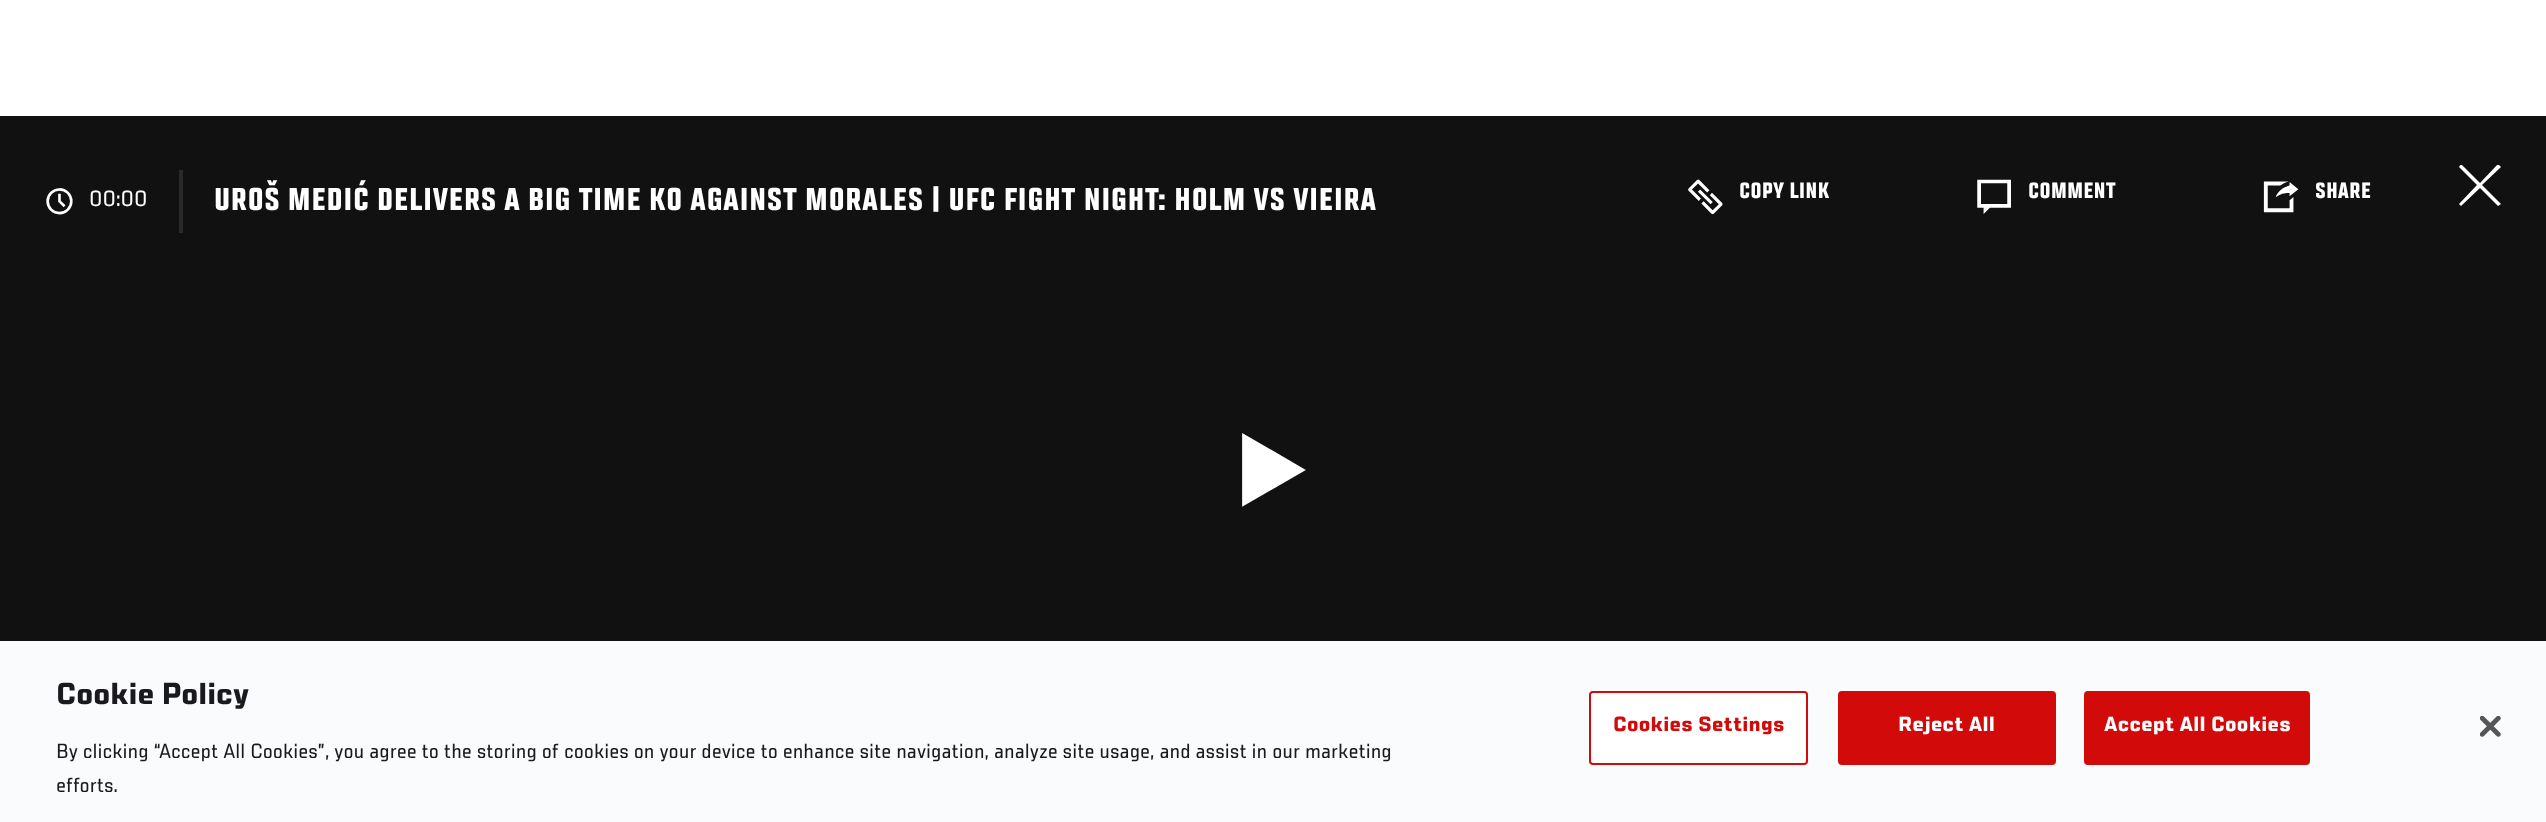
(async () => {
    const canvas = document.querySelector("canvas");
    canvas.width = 2546;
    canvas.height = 822;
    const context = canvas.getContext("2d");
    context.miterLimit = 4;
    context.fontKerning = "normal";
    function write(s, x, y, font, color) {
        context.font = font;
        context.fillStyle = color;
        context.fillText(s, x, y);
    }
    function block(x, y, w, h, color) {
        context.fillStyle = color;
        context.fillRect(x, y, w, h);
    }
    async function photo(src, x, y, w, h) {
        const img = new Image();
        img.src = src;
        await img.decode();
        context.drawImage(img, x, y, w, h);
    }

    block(0, 0, 2546, 822, "rgb(255, 255, 255)");
    block(0, 116, 2546, 525, "rgb(17, 17, 17)");
    await photo("media/1.png", 46, 188, 27, 27);
    write("00:00", 89, 206, "24.5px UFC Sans", "rgb(255, 255, 255)");
    block(179, 170, 4, 63, "rgb(41, 41, 41)");
    context.letterSpacing = "0.35px";
    write("UROŠ MEDIĆ DELIVERS A BIG TIME KO AGAINST MORALES | UFC FIGHT NIGHT: HOLM VS VIEIRA", 214, 210, "bold 35px UFC Sans", "rgb(255, 255, 255)");
    await photo("media/2.png", 1688, 179, 35, 36);
    context.letterSpacing = "0px";
    write("COPY LINK", 1739, 198, "bold 24.5px UFC Sans", "rgb(255, 255, 255)");
    await photo("media/3.png", 1977, 179, 34, 35);
    write("COMMENT", 2028, 198, "bold 24.5px UFC Sans", "rgb(255, 255, 255)");
    await photo("media/4.png", 2263, 181, 36, 32);
    write("SHARE", 2315, 198, "bold 24.5px UFC Sans", "rgb(255, 255, 255)");
    context.save();
    context.beginPath();
    context.rect(2459, 165, 42, 42);
    context.clip();
    context.beginPath();
    context.moveTo(2498, 164);
    context.lineTo(2501, 167);
    context.lineTo(2482, 185);
    context.lineTo(2501, 204);
    context.lineTo(2498, 206);
    context.lineTo(2480, 188);
    context.lineTo(2461, 206);
    context.lineTo(2459, 204);
    context.lineTo(2477, 185);
    context.lineTo(2459, 167);
    context.lineTo(2461, 164);
    context.lineTo(2480, 183);
    context.closePath();
    context.fill();
    context.restore();
    await photo("media/5.png", 1242, 433, 64, 74);
    block(0, 641, 2546, 181, "rgb(250, 251, 253)");
    write("Cookie Policy", 56, 704, "bold 33.5px 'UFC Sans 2'", "rgb(25, 25, 30)");
    write("By clicking “Accept All Cookies”, you agree to the storing of cookies on your device to enhance site navigation, analyze site usage, and assist in our marketing", 56, 758, "22.75px UFC Sans", "rgb(25, 25, 30)");
    write("efforts.", 56, 792, "22.75px UFC Sans", "rgb(25, 25, 30)");
    context.fillStyle = "rgb(255, 255, 255)";
    context.beginPath();
    context.roundRect(1590, 692, 217, 72, 3);
    context.fill();
    context.strokeStyle = "rgb(210, 10, 10)";
    context.lineWidth = 2;
    context.stroke();
    context.letterSpacing = "0.25px";
    write("Cookies Settings", 1613, 731, "bold 22.75px 'UFC Sans 2'", "rgb(210, 10, 10)");
    context.beginPath();
    context.roundRect(1839, 692, 216, 72, 3);
    context.fill();
    context.stroke();
    write("Reject All", 1898, 731, "bold 22.75px 'UFC Sans 2'", "rgb(255, 255, 255)");
    context.fillStyle = "rgb(210, 10, 10)";
    context.beginPath();
    context.roundRect(2085, 692, 224, 72, 3);
    context.fill();
    context.stroke();
    write("Accept All Cookies", 2104, 731, "bold 22.75px 'UFC Sans 2'", "rgb(255, 255, 255)");
    await photo("media/6.png", 2480, 716, 21, 21);
})();
